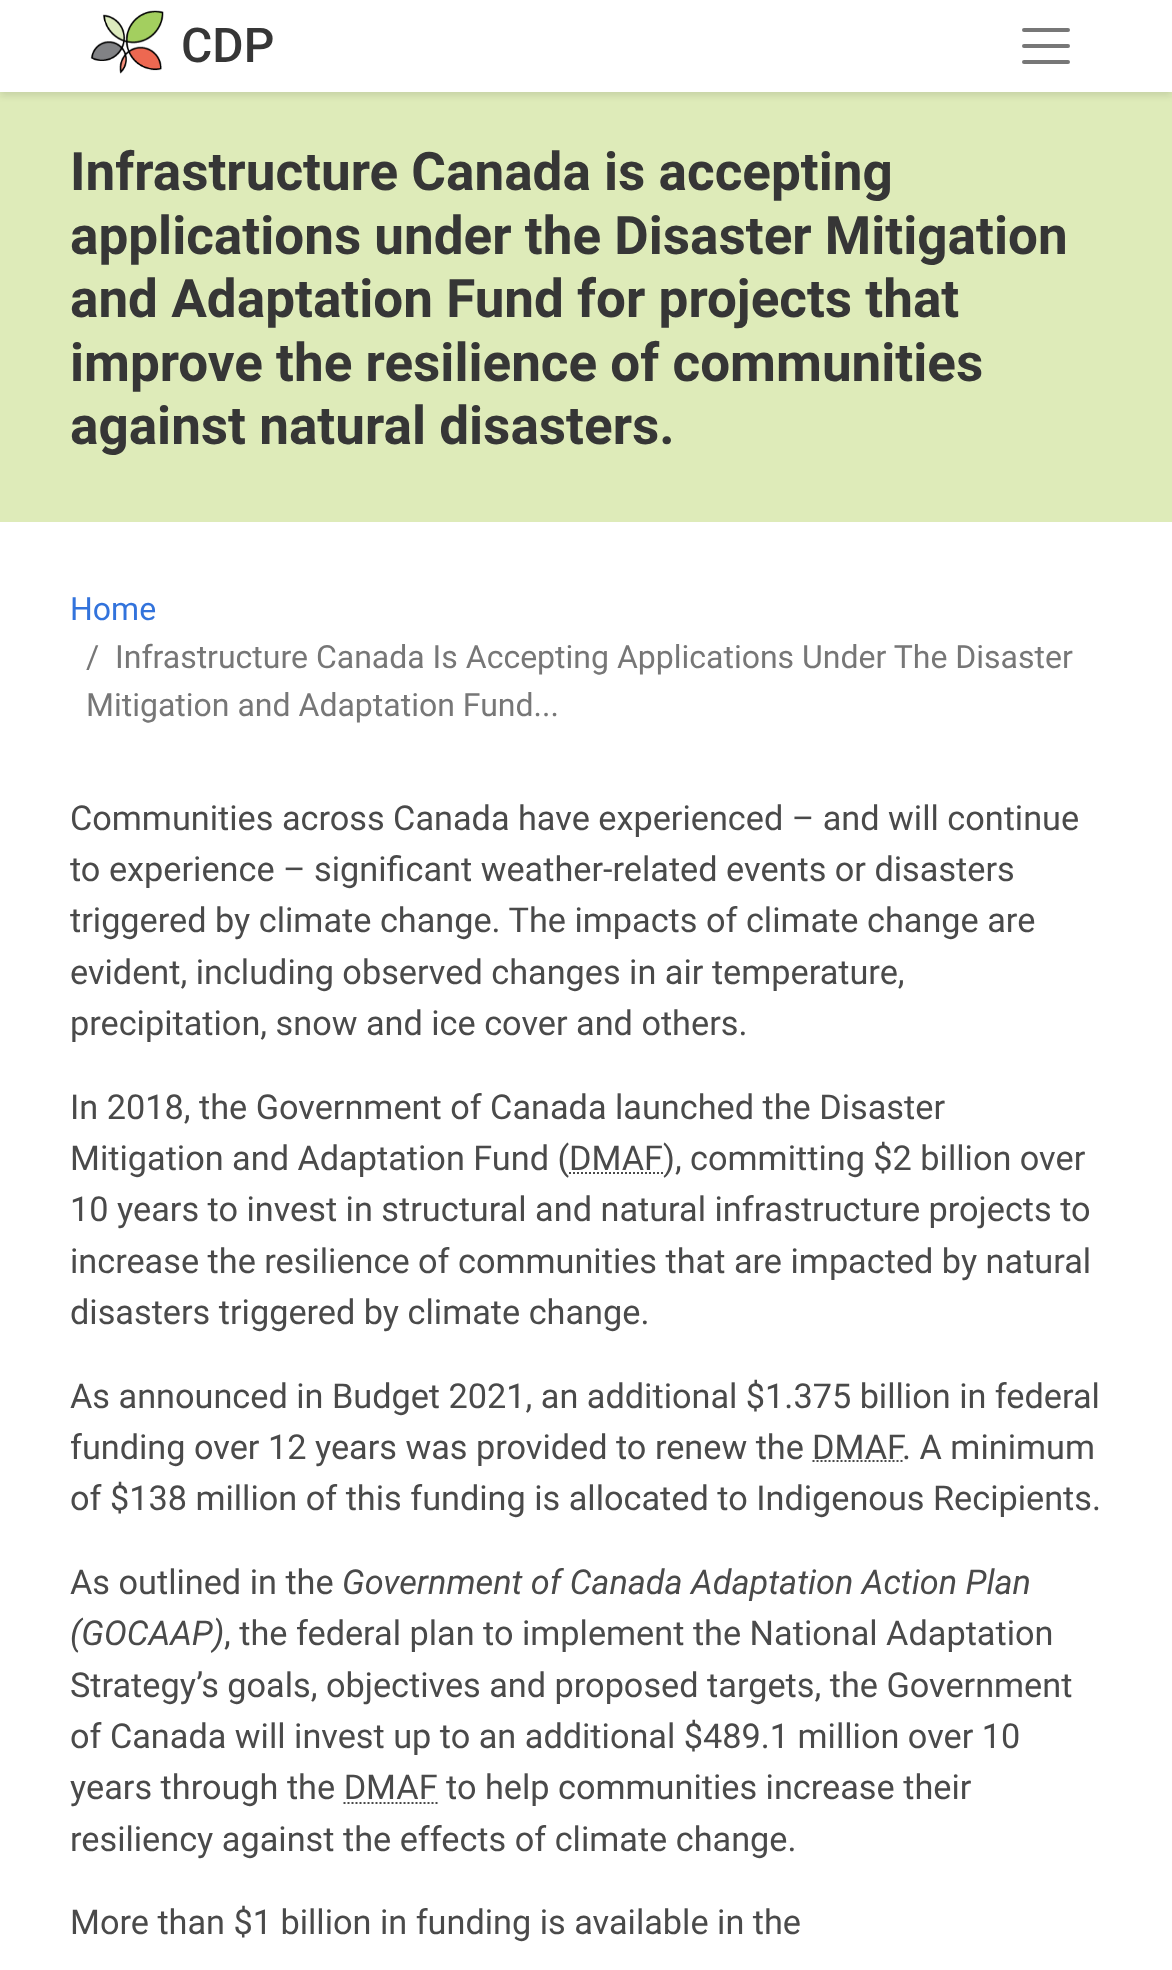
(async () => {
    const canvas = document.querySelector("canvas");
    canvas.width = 1172;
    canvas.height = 1970;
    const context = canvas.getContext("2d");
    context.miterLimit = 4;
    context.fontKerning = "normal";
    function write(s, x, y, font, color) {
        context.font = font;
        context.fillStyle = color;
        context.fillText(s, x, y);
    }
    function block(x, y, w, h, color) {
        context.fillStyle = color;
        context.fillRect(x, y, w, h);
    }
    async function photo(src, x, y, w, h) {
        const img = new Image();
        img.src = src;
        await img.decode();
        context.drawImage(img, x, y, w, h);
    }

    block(0, 0, 1172, 1970, "rgb(255, 255, 255)");
    block(0, 92, 1172, 430, "rgb(222, 235, 185)");
    context.fillStyle = "rgba(10, 10, 10, 0.1)";
    context.filter = "blur(3px)";
    context.beginPath();
    context.rect(0, 4, 1172, 92);
    context.fill();
    context.filter = "none";
    block(0, 0, 1172, 92, "rgb(255, 255, 255)");
    await photo("media/1.png", 90, 10, 74, 64);
    write("CDP", 181, 62, "500 48px Roboto", "rgb(54, 54, 54)");
    context.beginPath();
    context.moveTo(1024, 30);
    context.lineTo(1068, 30);
    context.moveTo(1024, 46);
    context.lineTo(1068, 46);
    context.moveTo(1024, 62);
    context.lineTo(1068, 62);
    context.strokeStyle = "rgb(119, 119, 119)";
    context.lineWidth = 4;
    context.lineCap = "round";
    context.stroke();
    write("Infrastructure Canada is accepting", 70, 190, "bold 53px Roboto", "rgb(54, 54, 54)");
    write("applications under the Disaster Mitigation", 70, 254, "bold 53px Roboto", "rgb(54, 54, 54)");
    write("and Adaptation Fund for projects that", 70, 317, "bold 53px Roboto", "rgb(54, 54, 54)");
    write("improve the resilience of communities", 70, 381, "bold 53px Roboto", "rgb(54, 54, 54)");
    write("against natural disasters.", 70, 444, "bold 53px Roboto", "rgb(54, 54, 54)");
    write("Home", 70, 620, "32px Roboto", "rgb(50, 115, 220)");
    write("/", 86, 668, "32px Roboto", "rgb(119, 119, 119)");
    write("Infrastructure Canada Is Accepting Applications Under The Disaster", 115, 668, "32px Roboto", "rgb(119, 119, 119)");
    write("Mitigation and Adaptation Fund...", 86, 716, "32px Roboto", "rgb(119, 119, 119)");
    write("Communities across Canada have experienced – and will continue", 70, 830, "34.25px Roboto", "rgb(74, 74, 74)");
    write("to experience – significant weather-related events or disasters", 70, 881, "34.25px Roboto", "rgb(74, 74, 74)");
    write("triggered by climate change. The impacts of climate change are", 70, 932, "34.25px Roboto", "rgb(74, 74, 74)");
    write("evident, including observed changes in air temperature,", 70, 984, "34.25px Roboto", "rgb(74, 74, 74)");
    write("precipitation, snow and ice cover and others.", 70, 1035, "34.25px Roboto", "rgb(74, 74, 74)");
    write("In 2018, the Government of Canada launched the Disaster", 70, 1119, "34.25px Roboto", "rgb(74, 74, 74)");
    write("Mitigation and Adaptation Fund (", 70, 1170, "34.25px Roboto", "rgb(74, 74, 74)");
    context.beginPath();
    context.moveTo(569, 1173);
    context.lineTo(663, 1173);
    context.strokeStyle = "rgb(74, 74, 74)";
    context.lineWidth = 2;
    context.lineCap = "butt";
    context.setLineDash([2, 2]);
    context.stroke();
    write("DMAF), committing $2 billion over", 569, 1170, "34.25px Roboto", "rgb(74, 74, 74)");
    write("10 years to invest in structural and natural infrastructure projects to", 70, 1221, "34.25px Roboto", "rgb(74, 74, 74)");
    write("increase the resilience of communities that are impacted by natural", 70, 1273, "34.25px Roboto", "rgb(74, 74, 74)");
    write("disasters triggered by climate change.", 70, 1324, "34.25px Roboto", "rgb(74, 74, 74)");
    write("As announced in Budget 2021, an additional $1.375 billion in federal", 70, 1408, "34.25px Roboto", "rgb(74, 74, 74)");
    write("funding over 12 years was provided to renew the", 70, 1459, "34.25px Roboto", "rgb(74, 74, 74)");
    write("DMAF", 812, 1459, "34.25px Roboto", "rgb(74, 74, 74)");
    context.beginPath();
    context.moveTo(812.5, 1461);
    context.lineTo(902.5, 1461);
    context.stroke();
    write(". A minimum", 902, 1459, "34.25px Roboto", "rgb(74, 74, 74)");
    write("of $138 million of this funding is allocated to Indigenous Recipients.", 70, 1510, "34.25px Roboto", "rgb(74, 74, 74)");
    write("As outlined in the", 70, 1594, "34.25px Roboto", "rgb(74, 74, 74)");
    write("Government of Canada Adaptation Action Plan", 342, 1594, "italic 34.25px Roboto", "rgb(74, 74, 74)");
    write("(GOCAAP)", 70, 1645, "italic 34.25px Roboto", "rgb(74, 74, 74)");
    write(", the federal plan to implement the National Adaptation", 224, 1645, "34.25px Roboto", "rgb(74, 74, 74)");
    write("Strategy’s goals, objectives and proposed targets, the Government", 70, 1697, "34.25px Roboto", "rgb(74, 74, 74)");
    write("of Canada will invest up to an additional $489.1 million over 10", 70, 1748, "34.25px Roboto", "rgb(74, 74, 74)");
    write("years through the DMAF to help communities increase their", 70, 1799, "34.25px Roboto", "rgb(74, 74, 74)");
    context.beginPath();
    context.moveTo(343.5, 1803);
    context.lineTo(437.5, 1803);
    context.stroke();
    write("resiliency against the effects of climate change.", 70, 1851, "34.25px Roboto", "rgb(74, 74, 74)");
    write("More than $1 billion in funding is available in the", 70, 1934, "34.25px Roboto", "rgb(74, 74, 74)");
})();
